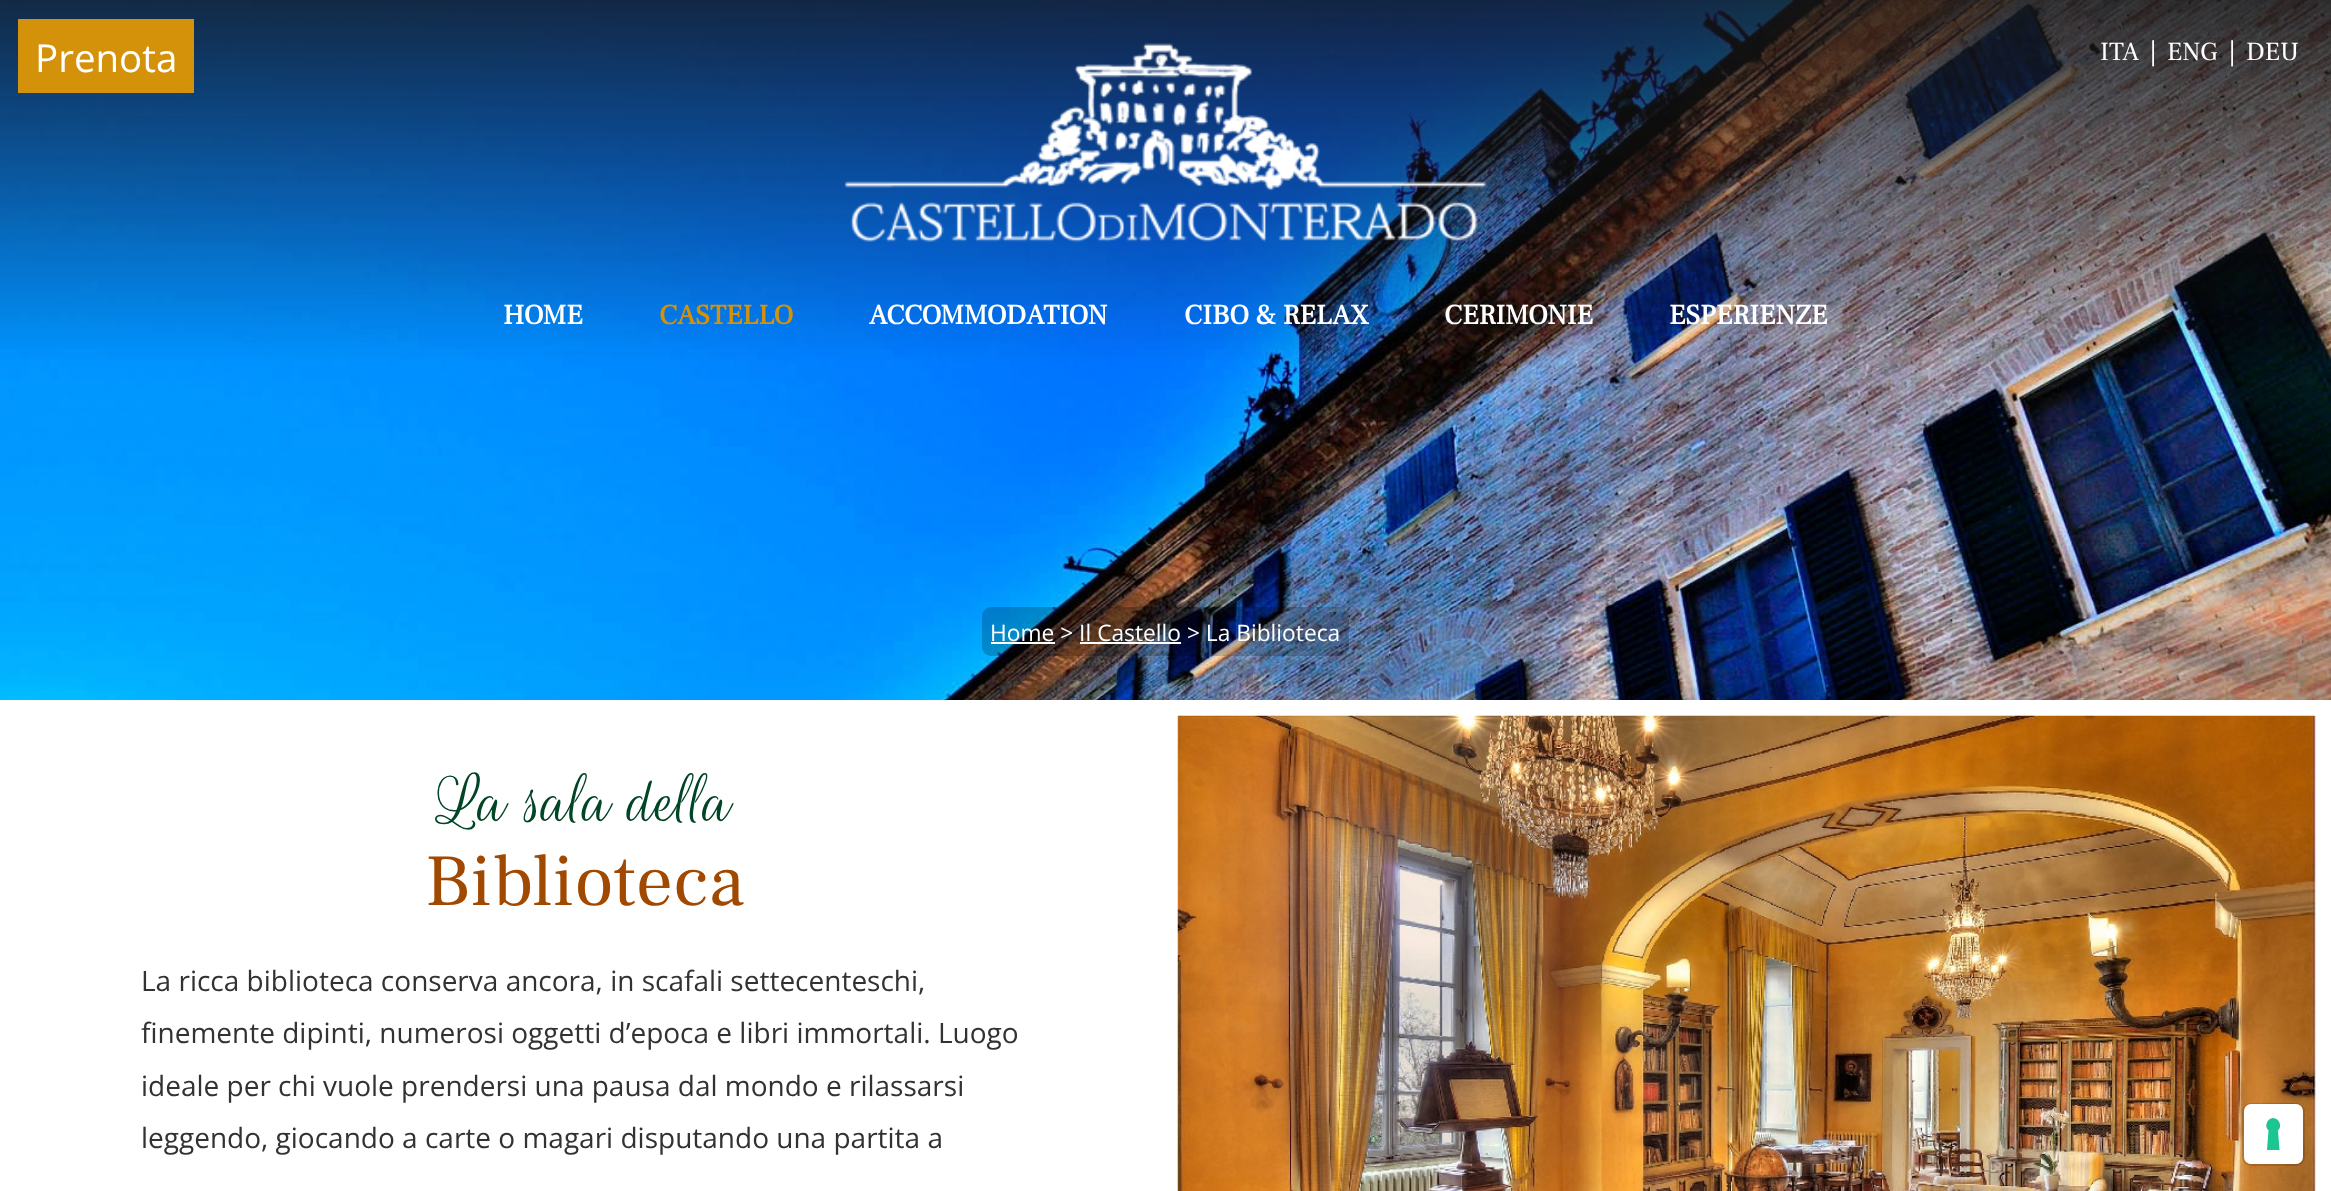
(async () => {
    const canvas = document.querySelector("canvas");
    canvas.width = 2331;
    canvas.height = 1191;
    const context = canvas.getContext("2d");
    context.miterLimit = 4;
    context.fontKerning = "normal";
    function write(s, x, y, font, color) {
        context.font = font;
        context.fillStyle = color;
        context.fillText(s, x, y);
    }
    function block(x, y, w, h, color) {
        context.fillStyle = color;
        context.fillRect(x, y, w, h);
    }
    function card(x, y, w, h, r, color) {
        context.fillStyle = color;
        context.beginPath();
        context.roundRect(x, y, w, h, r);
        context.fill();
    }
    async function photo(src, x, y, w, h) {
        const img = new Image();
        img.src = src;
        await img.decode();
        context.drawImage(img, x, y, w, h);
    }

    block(0, 0, 2331, 1191, "rgb(255, 255, 255)");
    await photo("media/2.png", 0, 0, 2331, 700);
    block(18, 19, 176, 74, "rgb(212, 146, 11)");
    write("Prenota", 35, 72, "38.5px Open Sans", "rgb(255, 255, 255)");
    write("ITA", 2100, 60, "26px Frank Ruhl Libre", "rgb(255, 255, 255)");
    write("|", 2146, 60, "26px Open Sans", "rgb(255, 255, 255)");
    write("ENG", 2167, 60, "26px Frank Ruhl Libre", "rgb(255, 255, 255)");
    write("|", 2225, 60, "26px Open Sans", "rgb(255, 255, 255)");
    write("DEU", 2246, 60, "26px Frank Ruhl Libre", "rgb(255, 255, 255)");
    await photo("media/1.png", 844, 43, 643, 199);
    write("HOME", 503, 324, "bold 28px Frank Ruhl Libre", "rgb(255, 255, 255)");
    write("CASTELLO", 659, 324, "bold 28px Frank Ruhl Libre", "rgb(212, 146, 11)");
    write("ACCOMMODATION", 869, 324, "bold 28px Frank Ruhl Libre", "rgb(255, 255, 255)");
    write("CIBO & RELAX", 1184, 324, "bold 28px Frank Ruhl Libre", "rgb(255, 255, 255)");
    write("CERIMONIE", 1444, 324, "bold 28px Frank Ruhl Libre", "rgb(255, 255, 255)");
    write("ESPERIENZE", 1669, 324, "bold 28px Frank Ruhl Libre", "rgb(255, 255, 255)");
    context.fillStyle = "rgba(0, 0, 0, 0.2)";
    context.beginPath();
    context.roundRect(982, 607, 73, 49, [9, 0, 0, 9]);
    context.fill();
    block(1055, 607, 25, 49, "rgba(0, 0, 0, 0.2)");
    block(1080, 607, 101, 49, "rgba(0, 0, 0, 0.2)");
    context.beginPath();
    context.roundRect(1181, 607, 168, 49, [0, 9, 9, 0]);
    context.fill();
    write("Home > Il Castello > La Biblioteca", 990, 641, "22.75px Open Sans", "rgb(255, 255, 255)");
    block(991, 642, 64, 2, "rgb(255, 255, 255)");
    block(1080, 642, 101, 2, "rgb(255, 255, 255)");
    write("La sala della", 437, 821, "73.5px Rouge Script", "rgb(0, 69, 37)");
    write("Biblioteca", 425, 905, "73.5px Frank Ruhl Libre", "rgb(161, 73, 1)");
    write("La ricca biblioteca conserva ancora, in scafali settecenteschi,", 141, 991, "28px Open Sans", "rgb(50, 50, 50)");
    write("finemente dipinti, numerosi oggetti d’epoca e libri immortali. Luogo", 141, 1043, "28px Open Sans", "rgb(50, 50, 50)");
    write("ideale per chi vuole prendersi una pausa dal mondo e rilassarsi", 141, 1096, "28px Open Sans", "rgb(50, 50, 50)");
    write("leggendo, giocando a carte o magari disputando una partita a", 141, 1148, "28px Open Sans", "rgb(50, 50, 50)");
    await photo("media/3.png", 1177, 715, 1139, 476);
    context.beginPath();
    context.roundRect(2243, 1104, 61, 61, 8);
    context.strokeStyle = "rgba(0, 0, 0, 0.15)";
    context.lineWidth = 2;
    context.stroke();
    card(2244, 1104, 59, 60, 7, "rgb(255, 255, 255)");
    context.fillStyle = "rgb(28, 198, 145)";
    context.beginPath();
    context.moveTo(2273, 1118);
    context.bezierCurveTo(2279.5, 1118.5, 2282.5, 1126.5, 2278, 1130.5);
    context.lineTo(2279.5, 1150);
    context.lineTo(2267, 1150);
    context.lineTo(2268.5, 1130.5);
    context.bezierCurveTo(2264, 1126.5, 2267, 1118.5, 2273, 1118);
    context.closePath();
    context.fill("evenodd");
})();
